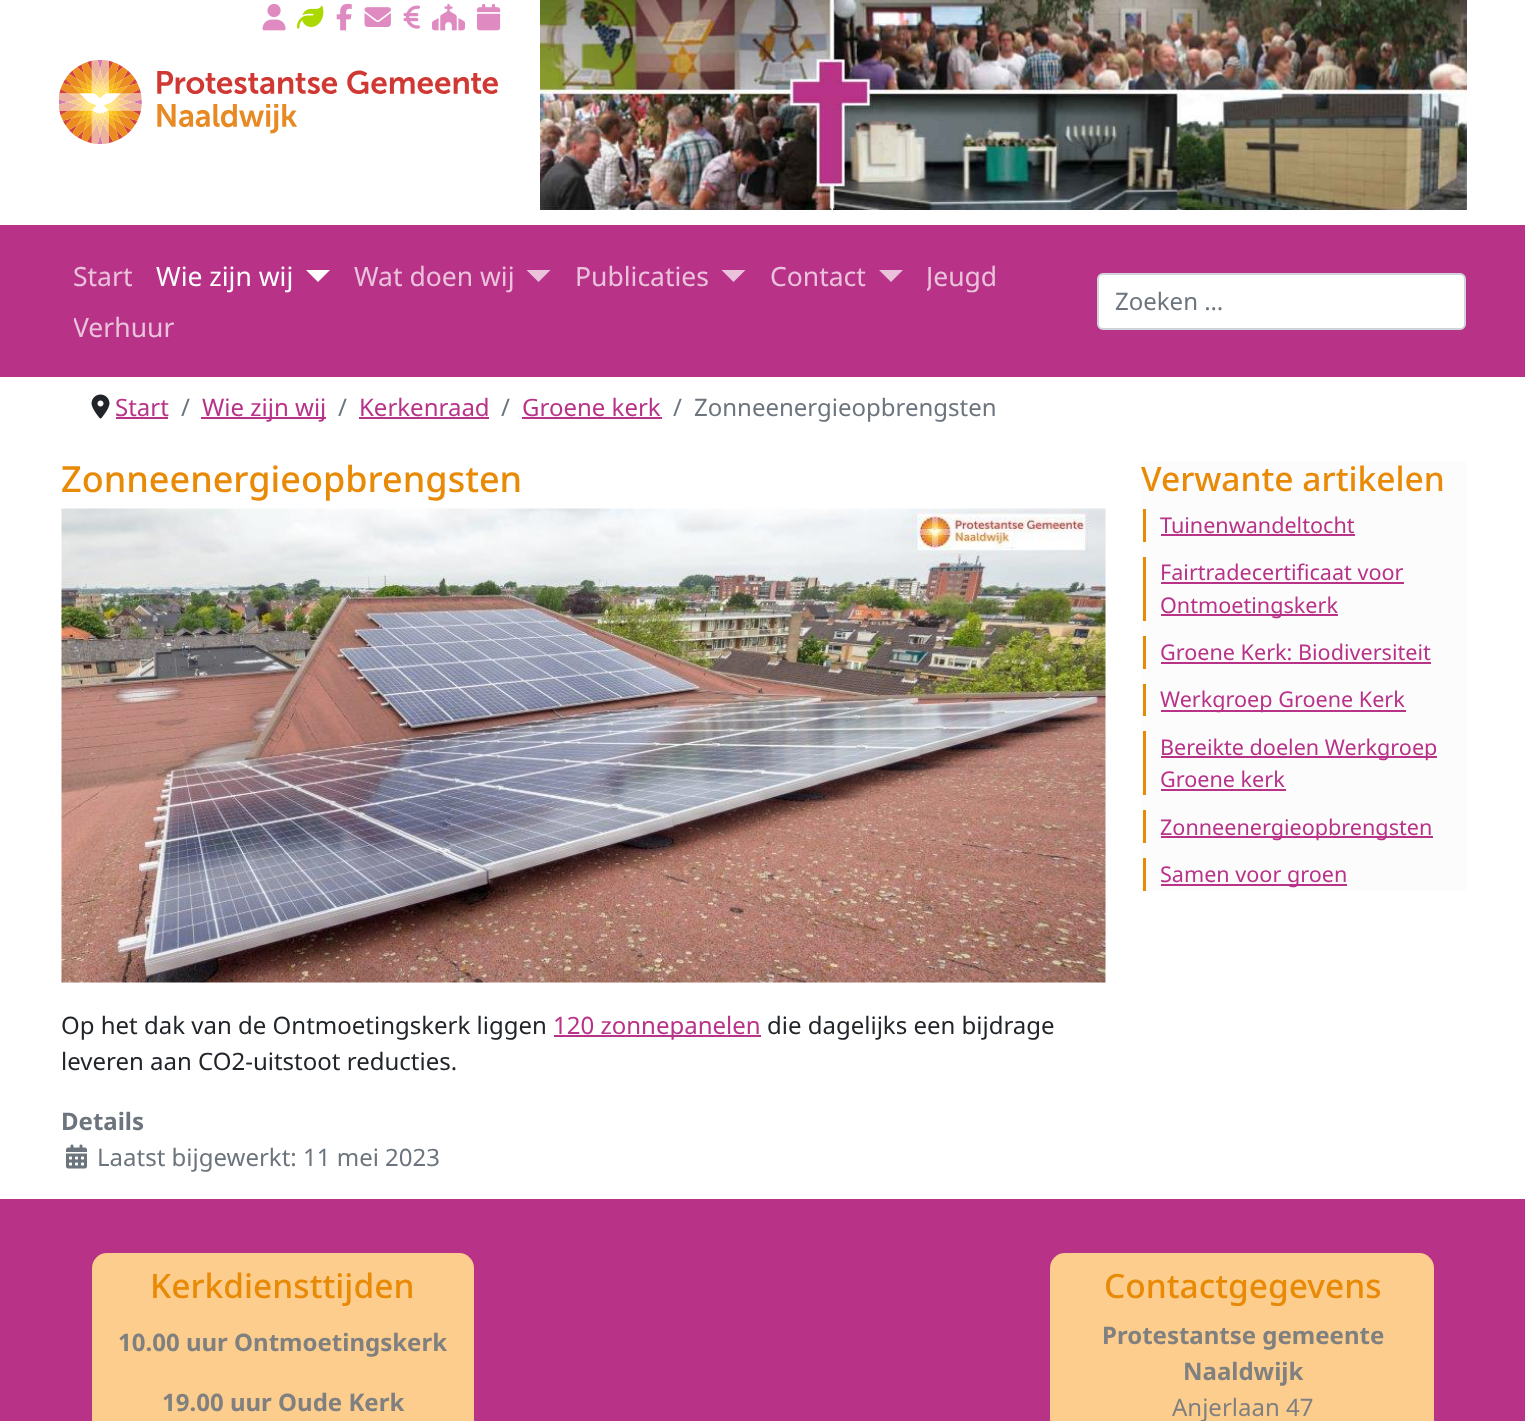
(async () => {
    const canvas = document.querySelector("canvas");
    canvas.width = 1525;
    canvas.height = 1421;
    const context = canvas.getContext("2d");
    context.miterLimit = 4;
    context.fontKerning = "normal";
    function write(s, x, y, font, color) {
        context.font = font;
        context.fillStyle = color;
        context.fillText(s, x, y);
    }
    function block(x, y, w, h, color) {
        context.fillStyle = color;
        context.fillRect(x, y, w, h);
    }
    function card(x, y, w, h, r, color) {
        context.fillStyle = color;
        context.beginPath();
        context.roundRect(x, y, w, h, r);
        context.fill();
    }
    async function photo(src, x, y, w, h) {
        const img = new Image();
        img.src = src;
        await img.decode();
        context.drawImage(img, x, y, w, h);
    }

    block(0, 0, 1525, 1421, "rgb(255, 255, 255)");
    await photo("media/1.png", 262, 3, 24, 28);
    await photo("media/2.png", 297, 5, 27, 24);
    await photo("media/3.png", 336, 3, 16, 28);
    await photo("media/4.png", 364, 7, 27, 20);
    await photo("media/5.png", 403, 5, 17, 24);
    await photo("media/6.png", 432, 3, 33, 28);
    await photo("media/7.png", 477, 3, 24, 28);
    await photo("media/8.png", 59, 60, 439, 84);
    await photo("media/9.png", 540, 0, 927, 210);
    block(0, 225, 1525, 152, "rgb(184, 50, 136)");
    write("Start", 73, 286, "26.5px Noto Sans", "rgb(234, 194, 219)");
    write("Wie zijn wij", 156, 286, "26.5px Noto Sans", "rgb(255, 255, 255)");
    context.beginPath();
    context.moveTo(306, 270);
    context.lineTo(330, 270);
    context.lineTo(318, 282);
    context.closePath();
    context.fill();
    write("Wat doen wij", 354, 286, "26.5px Noto Sans", "rgb(234, 194, 219)");
    context.beginPath();
    context.moveTo(526.5, 270);
    context.lineTo(550.5, 270);
    context.lineTo(538.5, 282);
    context.closePath();
    context.fill();
    write("Publicaties", 575, 286, "26.5px Noto Sans", "rgb(234, 194, 219)");
    context.beginPath();
    context.moveTo(721.5, 270);
    context.lineTo(745.5, 270);
    context.lineTo(733.5, 282);
    context.closePath();
    context.fill();
    write("Contact", 770, 286, "26.5px Noto Sans", "rgb(234, 194, 219)");
    context.beginPath();
    context.moveTo(879, 270);
    context.lineTo(903, 270);
    context.lineTo(891, 282);
    context.closePath();
    context.fill();
    context.save();
    context.beginPath();
    context.rect(927, 255, 71, 41);
    context.clip();
    write("Jeugd", 926, 286, "26.5px Noto Sans", "rgb(234, 194, 219)");
    context.restore();
    context.save();
    context.beginPath();
    context.rect(74, 308, 100, 39);
    context.clip();
    write("Verhuur", 73, 337, "26.5px Noto Sans", "rgb(234, 194, 219)");
    context.restore();
    context.fillStyle = "rgb(255, 255, 255)";
    context.beginPath();
    context.roundRect(1098, 274, 367, 55, 5);
    context.fill();
    context.strokeStyle = "rgb(206, 212, 218)";
    context.lineWidth = 2;
    context.stroke();
    write("Zoeken …", 1115, 310, "24px Noto Sans", "rgb(108, 117, 125)");
    await photo("media/10.png", 91, 394, 19, 25);
    write("Start", 115, 416, "24px Noto Sans", "rgb(184, 50, 136)");
    block(116, 417, 52, 2, "rgb(184, 50, 136)");
    write("/", 181, 416, "24px Noto Sans", "rgb(108, 117, 125)");
    block(201, 417, 125, 2, "rgb(184, 50, 136)");
    write("Wie zijn wij", 202, 416, "24px Noto Sans", "rgb(184, 50, 136)");
    write("/", 338, 416, "24px Noto Sans", "rgb(108, 117, 125)");
    write("Kerkenraad", 359, 416, "24px Noto Sans", "rgb(184, 50, 136)");
    block(359, 417, 130, 2, "rgb(184, 50, 136)");
    write("/", 501, 416, "24px Noto Sans", "rgb(108, 117, 125)");
    write("Groene kerk", 522, 416, "24px Noto Sans", "rgb(184, 50, 136)");
    block(522, 417, 140, 2, "rgb(184, 50, 136)");
    write("/", 673, 416, "24px Noto Sans", "rgb(108, 117, 125)");
    write("Zonneenergieopbrengsten", 694, 416, "24px Noto Sans", "rgb(108, 117, 125)");
    write("Zonneenergieopbrengsten", 61, 492, "500 36px Noto Sans", "rgb(233, 138, 6)");
    await photo("media/11.png", 61, 508, 1045, 475);
    write("Op het dak van de Ontmoetingskerk liggen", 61, 1034, "24px Noto Sans", "rgb(33, 37, 41)");
    block(554, 1035, 207, 2, "rgb(184, 50, 136)");
    write("120 zonnepanelen", 553, 1034, "24px Noto Sans", "rgb(184, 50, 136)");
    write("die dagelijks een bijdrage", 767, 1034, "24px Noto Sans", "rgb(33, 37, 41)");
    write("leveren aan CO2-uitstoot reducties.", 61, 1070, "24px Noto Sans", "rgb(33, 37, 41)");
    write("Details", 61, 1130, "bold 24px Noto Sans", "rgb(108, 117, 125)");
    await photo("media/12.png", 66, 1144, 21, 25);
    write("Laatst bijgewerkt: 11 mei 2023", 97, 1166, "24px Noto Sans", "rgb(108, 117, 125)");
    block(1142, 461, 324, 430, "rgb(252, 252, 252)");
    write("Verwante artikelen", 1141, 491, "500 33.5px Noto Sans", "rgb(233, 138, 6)");
    block(1143, 509, 3, 33, "rgb(233, 138, 6)");
    write("Tuinenwandeltocht", 1160, 533, "21.6px Noto Sans", "rgb(184, 50, 136)");
    block(1161, 534, 194, 2, "rgb(184, 50, 136)");
    block(1143, 557, 3, 64, "rgb(233, 138, 6)");
    write("Fairtradecertificaat voor", 1160, 580, "21.6px Noto Sans", "rgb(184, 50, 136)");
    block(1161, 582, 243, 2, "rgb(184, 50, 136)");
    block(1161, 614, 177, 2, "rgb(184, 50, 136)");
    write("Ontmoetingskerk", 1160, 613, "21.6px Noto Sans", "rgb(184, 50, 136)");
    block(1143, 636, 3, 33, "rgb(233, 138, 6)");
    write("Groene Kerk: Biodiversiteit", 1160, 660, "21.6px Noto Sans", "rgb(184, 50, 136)");
    block(1161, 662, 270, 2, "rgb(184, 50, 136)");
    block(1143, 684, 3, 32, "rgb(233, 138, 6)");
    block(1161, 710, 245, 2, "rgb(184, 50, 136)");
    write("Werkgroep Groene Kerk", 1160, 707, "21.6px Noto Sans", "rgb(184, 50, 136)");
    block(1143, 731, 3, 64, "rgb(233, 138, 6)");
    block(1161, 756, 276, 2, "rgb(184, 50, 136)");
    write("Bereikte doelen Werkgroep", 1160, 755, "21.6px Noto Sans", "rgb(184, 50, 136)");
    write("Groene kerk", 1160, 787, "21.6px Noto Sans", "rgb(184, 50, 136)");
    block(1161, 789, 125, 2, "rgb(184, 50, 136)");
    block(1143, 810, 3, 33, "rgb(233, 138, 6)");
    block(1161, 836, 272, 2, "rgb(184, 50, 136)");
    write("Zonneenergieopbrengsten", 1160, 835, "21.6px Noto Sans", "rgb(184, 50, 136)");
    block(1143, 858, 3, 33, "rgb(233, 138, 6)");
    block(1161, 884, 186, 2, "rgb(184, 50, 136)");
    write("Samen voor groen", 1160, 882, "21.6px Noto Sans", "rgb(184, 50, 136)");
    block(0, 1199, 1525, 222, "rgb(184, 50, 136)");
    card(92, 1253, 382, 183, 15, "rgb(252, 205, 140)");
    write("Kerkdiensttijden", 150, 1298, "500 33.5px Noto Sans", "rgb(233, 138, 6)");
    write("10.00 uur Ontmoetingskerk", 118, 1351, "bold 24px Noto Sans", "rgb(128, 128, 128)");
    write("19.00 uur Oude Kerk", 162, 1411, "bold 24px Noto Sans", "rgb(128, 128, 128)");
    card(1050, 1253, 384, 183, 15, "rgb(252, 205, 140)");
    write("Contactgegevens", 1104, 1298, "500 33.5px Noto Sans", "rgb(233, 138, 6)");
    write("Protestantse gemeente", 1102, 1344, "bold 24px Noto Sans", "rgb(128, 128, 128)");
    write("Naaldwijk", 1183, 1380, "bold 24px Noto Sans", "rgb(128, 128, 128)");
    write("Anjerlaan 47", 1172, 1416, "24px Noto Sans", "rgb(128, 128, 128)");
})();
